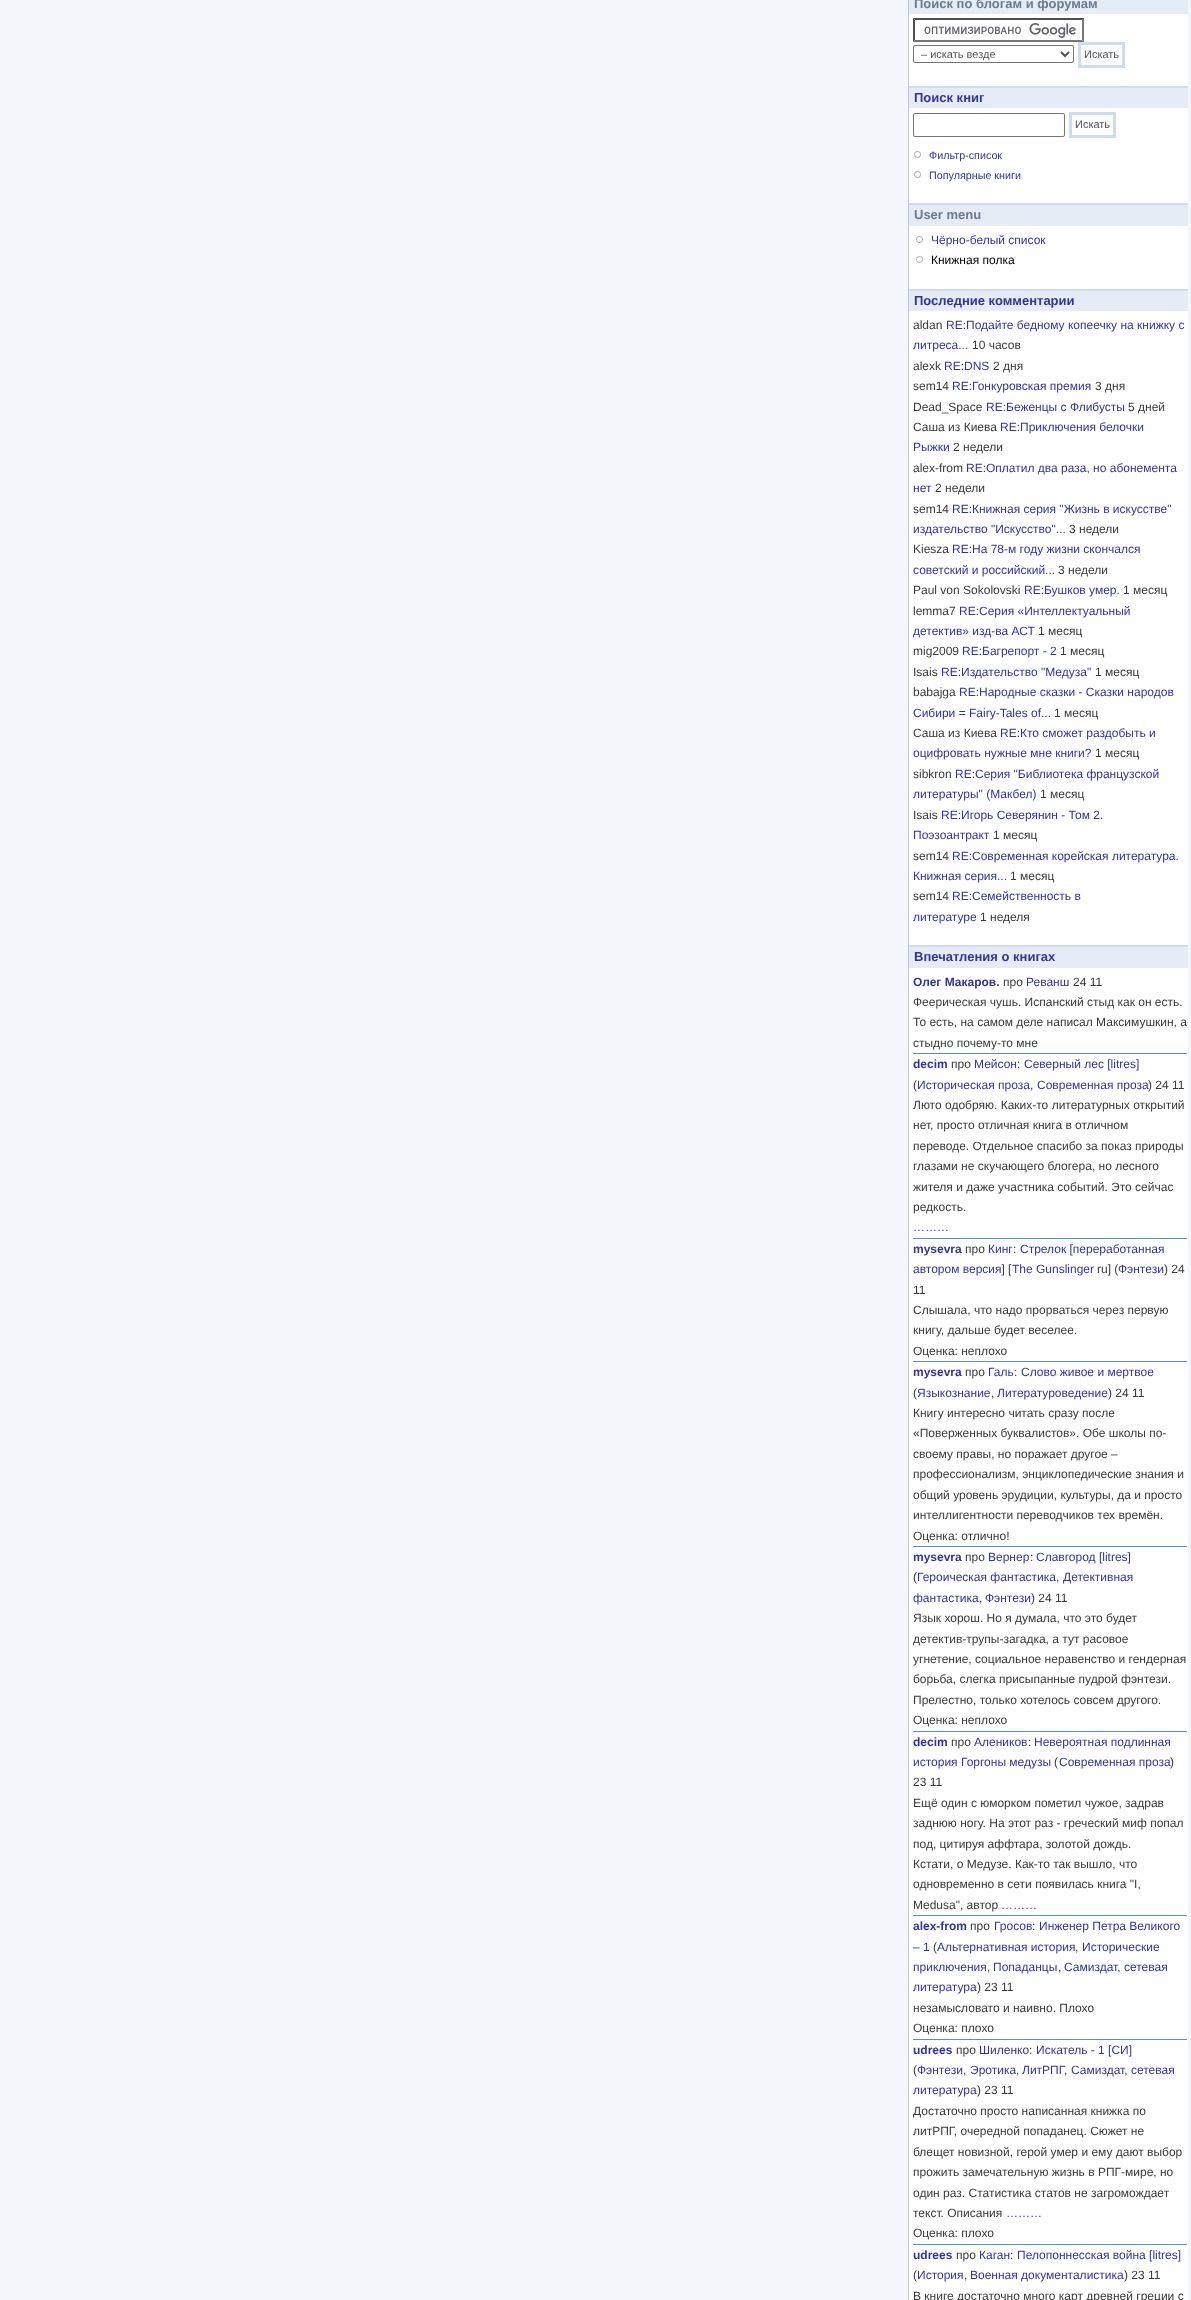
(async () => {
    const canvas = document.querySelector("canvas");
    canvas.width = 1191;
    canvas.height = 2300;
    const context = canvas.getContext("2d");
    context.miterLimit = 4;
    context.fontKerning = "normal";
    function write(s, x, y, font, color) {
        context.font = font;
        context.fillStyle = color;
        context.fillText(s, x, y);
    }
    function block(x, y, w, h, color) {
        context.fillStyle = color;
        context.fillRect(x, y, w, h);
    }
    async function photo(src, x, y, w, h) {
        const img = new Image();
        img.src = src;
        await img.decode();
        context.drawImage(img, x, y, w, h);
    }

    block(0, 0, 1191, 2300, "rgb(243, 247, 251)");
    block(909, 14, 279, 2286, "rgb(255, 255, 255)");
    block(908, 0, 1, 2300, "rgb(191, 196, 207)");
    block(909, 0, 279, 14, "rgb(229, 236, 245)");
    write("Поиск по блогам и форумам", 914, 8, "bold 13px Liberation Sans", "rgb(108, 122, 141)");
    await photo("media/1.png", 924, 23, 152, 15);
    context.fillStyle = "rgb(79, 79, 79)";
    context.beginPath();
    context.moveTo(913, 18);
    context.lineTo(1084, 18);
    context.lineTo(1082, 20);
    context.lineTo(915, 20);
    context.closePath();
    context.fill();
    context.fillStyle = "rgb(118, 118, 118)";
    context.beginPath();
    context.moveTo(1084, 18);
    context.lineTo(1084, 42);
    context.lineTo(1082, 40);
    context.lineTo(1082, 20);
    context.closePath();
    context.fill();
    context.beginPath();
    context.moveTo(1084, 42);
    context.lineTo(913, 42);
    context.lineTo(915, 40);
    context.lineTo(1082, 40);
    context.closePath();
    context.fill();
    context.fillStyle = "rgb(79, 79, 79)";
    context.beginPath();
    context.moveTo(913, 42);
    context.lineTo(913, 18);
    context.lineTo(915, 20);
    context.lineTo(915, 40);
    context.closePath();
    context.fill();
    context.beginPath();
    context.roundRect(913.5, 45.5, 160, 17, 1.5);
    context.strokeStyle = "rgb(118, 118, 118)";
    context.stroke();
    context.beginPath();
    context.moveTo(1061, 52);
    context.lineTo(1065, 56);
    context.lineTo(1069, 52);
    context.strokeStyle = "rgb(85, 85, 85)";
    context.lineWidth = 2;
    context.stroke();
    write("– искать везде", 921, 58, "11px Liberation Sans", "rgb(85, 85, 85)");
    context.fillStyle = "rgb(251, 252, 254)";
    context.beginPath();
    context.rect(1079.5, 43.5, 44, 23);
    context.fill();
    context.strokeStyle = "rgb(209, 219, 236)";
    context.lineWidth = 3;
    context.stroke();
    write("Искать", 1084, 58, "11px Liberation Sans", "rgb(85, 85, 85)");
    block(909, 88, 279, 20, "rgb(229, 236, 245)");
    block(909, 86, 279, 2, "rgb(209, 219, 236)");
    write("Поиск книг", 914, 102, "bold 13px Liberation Sans", "rgb(51, 51, 153)");
    context.beginPath();
    context.roundRect(913.5, 113.5, 151, 23, 1.5);
    context.strokeStyle = "rgb(118, 118, 118)";
    context.lineWidth = 1;
    context.stroke();
    context.fillStyle = "rgb(251, 252, 254)";
    context.beginPath();
    context.rect(1070.5, 113.5, 44, 23);
    context.fill();
    context.strokeStyle = "rgb(209, 219, 236)";
    context.lineWidth = 3;
    context.stroke();
    write("Искать", 1075, 128, "11px Liberation Sans", "rgb(85, 85, 85)");
    await photo("media/2.png", 914, 151, 7, 7);
    write("Фильтр-список", 929, 159, "10.75px Liberation Sans", "rgb(51, 51, 153)");
    await photo("media/2.png", 914, 171, 7, 7);
    write("Популярные книги", 929, 179, "10.75px Liberation Sans", "rgb(51, 51, 153)");
    block(909, 205, 279, 21, "rgb(229, 236, 245)");
    block(909, 203, 279, 2, "rgb(209, 219, 236)");
    write("User menu", 914, 219, "bold 13px Liberation Sans", "rgb(108, 122, 141)");
    await photo("media/2.png", 916, 236, 7, 7);
    write("Чёрно-белый список", 931, 244, "12px Liberation Sans", "rgb(51, 51, 153)");
    await photo("media/2.png", 916, 256, 7, 7);
    write("Книжная полка", 931, 264, "12px Liberation Sans", "rgb(0, 0, 0)");
    block(909, 291, 279, 20, "rgb(229, 236, 245)");
    block(909, 289, 279, 2, "rgb(209, 219, 236)");
    write("Последние комментарии", 914, 305, "bold 13px Liberation Sans", "rgb(51, 51, 153)");
    write("aldan", 913, 329, "12px Liberation Sans", "rgb(57, 57, 57)");
    write("RE:Подайте бедному копеечку на книжку с", 946, 329, "12px Liberation Sans", "rgb(51, 51, 153)");
    write("литреса...", 913, 349, "12px Liberation Sans", "rgb(51, 51, 153)");
    write("10 часов", 972, 349, "12px Liberation Sans", "rgb(57, 57, 57)");
    write("alexk", 913, 370, "12px Liberation Sans", "rgb(57, 57, 57)");
    write("RE:DNS", 944, 370, "12px Liberation Sans", "rgb(51, 51, 153)");
    write("2 дня", 993, 370, "12px Liberation Sans", "rgb(57, 57, 57)");
    write("sem14", 913, 390, "12px Liberation Sans", "rgb(57, 57, 57)");
    write("RE:Гонкуровская премия", 952, 390, "12px Liberation Sans", "rgb(51, 51, 153)");
    write("3 дня", 1095, 390, "12px Liberation Sans", "rgb(57, 57, 57)");
    write("Dead_Space", 913, 411, "12px Liberation Sans", "rgb(57, 57, 57)");
    write("RE:Беженцы с Флибусты", 986, 411, "12px Liberation Sans", "rgb(51, 51, 153)");
    write("5 дней", 1128, 411, "12px Liberation Sans", "rgb(57, 57, 57)");
    write("Саша из Киева", 913, 431, "12px Liberation Sans", "rgb(57, 57, 57)");
    write("RE:Приключения белочки", 1000, 431, "12px Liberation Sans", "rgb(51, 51, 153)");
    write("Рыжки", 913, 451, "12px Liberation Sans", "rgb(51, 51, 153)");
    write("2 недели", 953, 451, "12px Liberation Sans", "rgb(57, 57, 57)");
    write("alex-from", 913, 472, "12px Liberation Sans", "rgb(57, 57, 57)");
    write("RE:Оплатил два раза, но абонемента", 966, 472, "12px Liberation Sans", "rgb(51, 51, 153)");
    write("нет", 913, 492, "12px Liberation Sans", "rgb(51, 51, 153)");
    write("2 недели", 935, 492, "12px Liberation Sans", "rgb(57, 57, 57)");
    write("sem14", 913, 513, "12px Liberation Sans", "rgb(57, 57, 57)");
    write("RE:Книжная серия \"Жизнь в искусстве\"", 952, 513, "12px Liberation Sans", "rgb(51, 51, 153)");
    write("издательство \"Искусство\"...", 913, 533, "12px Liberation Sans", "rgb(51, 51, 153)");
    write("3 недели", 1069, 533, "12px Liberation Sans", "rgb(57, 57, 57)");
    write("Kiesza", 913, 553, "12px Liberation Sans", "rgb(57, 57, 57)");
    write("RE:На 78-м году жизни скончался", 952, 553, "12px Liberation Sans", "rgb(51, 51, 153)");
    write("советский и российский...", 913, 574, "12px Liberation Sans", "rgb(51, 51, 153)");
    write("3 недели", 1058, 574, "12px Liberation Sans", "rgb(57, 57, 57)");
    write("Paul von Sokolovski", 913, 594, "12px Liberation Sans", "rgb(57, 57, 57)");
    write("RE:Бушков умер.", 1024, 594, "12px Liberation Sans", "rgb(51, 51, 153)");
    write("1 месяц", 1123, 594, "12px Liberation Sans", "rgb(57, 57, 57)");
    write("lemma7", 913, 615, "12px Liberation Sans", "rgb(57, 57, 57)");
    write("RE:Серия «Интеллектуальный", 959, 615, "12px Liberation Sans", "rgb(51, 51, 153)");
    write("детектив» изд-ва АСТ", 913, 635, "12px Liberation Sans", "rgb(51, 51, 153)");
    write("1 месяц", 1038, 635, "12px Liberation Sans", "rgb(57, 57, 57)");
    write("mig2009", 913, 655, "12px Liberation Sans", "rgb(57, 57, 57)");
    write("RE:Багрепорт - 2", 962, 655, "12px Liberation Sans", "rgb(51, 51, 153)");
    write("1 месяц", 1060, 655, "12px Liberation Sans", "rgb(57, 57, 57)");
    write("Isais", 913, 676, "12px Liberation Sans", "rgb(57, 57, 57)");
    write("RE:Издательство \"Медуза\"", 941, 676, "12px Liberation Sans", "rgb(51, 51, 153)");
    write("1 месяц", 1095, 676, "12px Liberation Sans", "rgb(57, 57, 57)");
    write("babajga", 913, 696, "12px Liberation Sans", "rgb(57, 57, 57)");
    write("RE:Народные сказки - Сказки народов", 959, 696, "12px Liberation Sans", "rgb(51, 51, 153)");
    write("Сибири = Fairy-Tales of...", 913, 717, "12px Liberation Sans", "rgb(51, 51, 153)");
    write("1 месяц", 1054, 717, "12px Liberation Sans", "rgb(57, 57, 57)");
    write("Саша из Киева", 913, 737, "12px Liberation Sans", "rgb(57, 57, 57)");
    write("RE:Кто сможет раздобыть и", 1000, 737, "12px Liberation Sans", "rgb(51, 51, 153)");
    write("оцифровать нужные мне книги?", 913, 757, "12px Liberation Sans", "rgb(51, 51, 153)");
    write("1 месяц", 1095, 757, "12px Liberation Sans", "rgb(57, 57, 57)");
    write("sibkron", 913, 778, "12px Liberation Sans", "rgb(57, 57, 57)");
    write("RE:Серия \"Библиотека французской", 955, 778, "12px Liberation Sans", "rgb(51, 51, 153)");
    write("литературы\" (Макбел)", 913, 798, "12px Liberation Sans", "rgb(51, 51, 153)");
    write("1 месяц", 1040, 798, "12px Liberation Sans", "rgb(57, 57, 57)");
    write("Isais", 913, 819, "12px Liberation Sans", "rgb(57, 57, 57)");
    write("RE:Игорь Северянин - Том 2.", 941, 819, "12px Liberation Sans", "rgb(51, 51, 153)");
    write("Поэзоантракт", 913, 839, "12px Liberation Sans", "rgb(51, 51, 153)");
    write("1 месяц", 993, 839, "12px Liberation Sans", "rgb(57, 57, 57)");
    write("sem14", 913, 860, "12px Liberation Sans", "rgb(57, 57, 57)");
    write("RE:Современная корейская литература.", 952, 860, "12px Liberation Sans", "rgb(51, 51, 153)");
    write("Книжная серия...", 913, 880, "12px Liberation Sans", "rgb(51, 51, 153)");
    write("1 месяц", 1010, 880, "12px Liberation Sans", "rgb(57, 57, 57)");
    write("sem14", 913, 900, "12px Liberation Sans", "rgb(57, 57, 57)");
    write("RE:Семейственность в", 952, 900, "12px Liberation Sans", "rgb(51, 51, 153)");
    write("литературе", 913, 921, "12px Liberation Sans", "rgb(51, 51, 153)");
    write("1 неделя", 980, 921, "12px Liberation Sans", "rgb(57, 57, 57)");
    block(909, 947, 279, 21, "rgb(229, 236, 245)");
    block(909, 945, 279, 2, "rgb(209, 219, 236)");
    write("Впечатления о книгах", 914, 961, "bold 13px Liberation Sans", "rgb(51, 51, 153)");
    write("Олег Макаров.", 913, 986, "bold 12px Liberation Sans", "rgb(51, 51, 153)");
    write("про", 1003, 986, "12px Liberation Sans", "rgb(57, 57, 57)");
    write("Реванш", 1026, 986, "12px Liberation Sans", "rgb(51, 51, 153)");
    write("24 11", 1073, 986, "12px Liberation Sans", "rgb(57, 57, 57)");
    write("Феерическая чушь. Испанский стыд как он есть.", 913, 1006, "12px Liberation Sans", "rgb(57, 57, 57)");
    write("То есть, на самом деле написал Максимушкин, а", 913, 1026, "12px Liberation Sans", "rgb(57, 57, 57)");
    write("стыдно почему-то мне", 913, 1047, "12px Liberation Sans", "rgb(57, 57, 57)");
    block(913, 1053, 274, 1, "rgb(82, 148, 193)");
    write("decim", 913, 1068, "bold 12px Liberation Sans", "rgb(51, 51, 153)");
    write("про", 951, 1068, "12px Liberation Sans", "rgb(57, 57, 57)");
    write("Мейсон", 974, 1068, "12px Liberation Sans", "rgb(51, 51, 153)");
    write(":", 1017, 1068, "12px Liberation Sans", "rgb(57, 57, 57)");
    write("Северный лес [litres]", 1024, 1068, "12px Liberation Sans", "rgb(51, 51, 153)");
    write("(", 913, 1089, "12px Liberation Sans", "rgb(57, 57, 57)");
    write("Историческая проза", 917, 1089, "12px Liberation Sans", "rgb(51, 51, 153)");
    write(",", 1030, 1089, "12px Liberation Sans", "rgb(57, 57, 57)");
    write("Современная проза", 1037, 1089, "12px Liberation Sans", "rgb(51, 51, 153)");
    write(") 24 11", 1148, 1089, "12px Liberation Sans", "rgb(57, 57, 57)");
    write("Люто одобряю. Каких-то литературных открытий", 913, 1109, "12px Liberation Sans", "rgb(57, 57, 57)");
    write("нет, просто отличная книга в отличном", 913, 1129, "12px Liberation Sans", "rgb(57, 57, 57)");
    write("переводе. Отдельное спасибо за показ природы", 913, 1150, "12px Liberation Sans", "rgb(57, 57, 57)");
    write("глазами не скучающего блогера, но лесного", 913, 1170, "12px Liberation Sans", "rgb(57, 57, 57)");
    write("жителя и даже участника событий. Это сейчас", 913, 1191, "12px Liberation Sans", "rgb(57, 57, 57)");
    write("редкость.", 913, 1211, "12px Liberation Sans", "rgb(57, 57, 57)");
    write("………", 913, 1231, "12px Liberation Sans", "rgb(51, 51, 153)");
    block(913, 1238, 274, 1, "rgb(82, 148, 193)");
    write("mysevra", 913, 1253, "bold 12px Liberation Sans", "rgb(51, 51, 153)");
    write("про", 965, 1253, "12px Liberation Sans", "rgb(57, 57, 57)");
    write("Кинг", 988, 1253, "12px Liberation Sans", "rgb(51, 51, 153)");
    write(":", 1013, 1253, "12px Liberation Sans", "rgb(57, 57, 57)");
    write("Стрелок [переработанная", 1020, 1253, "12px Liberation Sans", "rgb(51, 51, 153)");
    write("автором версия]", 913, 1273, "12px Liberation Sans", "rgb(51, 51, 153)");
    write("[", 1008, 1273, "12px Liberation Sans", "rgb(57, 57, 57)");
    write("The Gunslinger", 1012, 1273, "12px Liberation Sans", "rgb(51, 51, 153)");
    write("ru] (", 1097, 1273, "12px Liberation Sans", "rgb(57, 57, 57)");
    write("Фэнтези", 1118, 1273, "12px Liberation Sans", "rgb(51, 51, 153)");
    write(") 24", 1164, 1273, "12px Liberation Sans", "rgb(57, 57, 57)");
    write("11", 913, 1294, "12px Liberation Sans", "rgb(57, 57, 57)");
    write("Слышала, что надо прорваться через первую", 913, 1314, "12px Liberation Sans", "rgb(57, 57, 57)");
    write("книгу, дальше будет веселее.", 913, 1334, "12px Liberation Sans", "rgb(57, 57, 57)");
    write("Оценка: неплохо", 913, 1355, "12px Liberation Sans", "rgb(57, 57, 57)");
    block(913, 1361, 274, 1, "rgb(82, 148, 193)");
    write("mysevra", 913, 1376, "bold 12px Liberation Sans", "rgb(51, 51, 153)");
    write("про", 965, 1376, "12px Liberation Sans", "rgb(57, 57, 57)");
    write("Галь", 988, 1376, "12px Liberation Sans", "rgb(51, 51, 153)");
    write(":", 1014, 1376, "12px Liberation Sans", "rgb(57, 57, 57)");
    write("Слово живое и мертвое", 1021, 1376, "12px Liberation Sans", "rgb(51, 51, 153)");
    write("(", 913, 1397, "12px Liberation Sans", "rgb(57, 57, 57)");
    write("Языкознание", 917, 1397, "12px Liberation Sans", "rgb(51, 51, 153)");
    write(",", 991, 1397, "12px Liberation Sans", "rgb(57, 57, 57)");
    write("Литературоведение", 997, 1397, "12px Liberation Sans", "rgb(51, 51, 153)");
    write(") 24 11", 1108, 1397, "12px Liberation Sans", "rgb(57, 57, 57)");
    write("Книгу интересно читать сразу после", 913, 1417, "12px Liberation Sans", "rgb(57, 57, 57)");
    write("«Поверженных буквалистов». Обе школы по-", 913, 1437, "12px Liberation Sans", "rgb(57, 57, 57)");
    write("своему правы, но поражает другое –", 913, 1458, "12px Liberation Sans", "rgb(57, 57, 57)");
    write("профессионализм, энциклопедические знания и", 913, 1478, "12px Liberation Sans", "rgb(57, 57, 57)");
    write("общий уровень эрудиции, культуры, да и просто", 913, 1499, "12px Liberation Sans", "rgb(57, 57, 57)");
    write("интеллигентности переводчиков тех времён.", 913, 1519, "12px Liberation Sans", "rgb(57, 57, 57)");
    write("Оценка: отлично!", 913, 1540, "12px Liberation Sans", "rgb(57, 57, 57)");
    block(913, 1546, 274, 1, "rgb(82, 148, 193)");
    write("mysevra", 913, 1561, "bold 12px Liberation Sans", "rgb(51, 51, 153)");
    write("про", 965, 1561, "12px Liberation Sans", "rgb(57, 57, 57)");
    write("Вернер", 988, 1561, "12px Liberation Sans", "rgb(51, 51, 153)");
    write(":", 1030, 1561, "12px Liberation Sans", "rgb(57, 57, 57)");
    write("Славгород [litres]", 1036, 1561, "12px Liberation Sans", "rgb(51, 51, 153)");
    write("(", 913, 1581, "12px Liberation Sans", "rgb(57, 57, 57)");
    write("Героическая фантастика", 917, 1581, "12px Liberation Sans", "rgb(51, 51, 153)");
    write(",", 1056, 1581, "12px Liberation Sans", "rgb(57, 57, 57)");
    write("Детективная", 1063, 1581, "12px Liberation Sans", "rgb(51, 51, 153)");
    write("фантастика", 913, 1602, "12px Liberation Sans", "rgb(51, 51, 153)");
    write(",", 979, 1602, "12px Liberation Sans", "rgb(57, 57, 57)");
    write("Фэнтези", 985, 1602, "12px Liberation Sans", "rgb(51, 51, 153)");
    write(") 24 11", 1031, 1602, "12px Liberation Sans", "rgb(57, 57, 57)");
    write("Язык хорош. Но я думала, что это будет", 913, 1622, "12px Liberation Sans", "rgb(57, 57, 57)");
    write("детектив-трупы-загадка, а тут расовое", 913, 1643, "12px Liberation Sans", "rgb(57, 57, 57)");
    write("угнетение, социальное неравенство и гендерная", 913, 1663, "12px Liberation Sans", "rgb(57, 57, 57)");
    write("борьба, слегка присыпанные пудрой фэнтези.", 913, 1683, "12px Liberation Sans", "rgb(57, 57, 57)");
    write("Прелестно, только хотелось совсем другого.", 913, 1704, "12px Liberation Sans", "rgb(57, 57, 57)");
    write("Оценка: неплохо", 913, 1724, "12px Liberation Sans", "rgb(57, 57, 57)");
    block(913, 1731, 274, 1, "rgb(82, 148, 193)");
    write("decim", 913, 1746, "bold 12px Liberation Sans", "rgb(51, 51, 153)");
    write("про", 951, 1746, "12px Liberation Sans", "rgb(57, 57, 57)");
    write("Алеников", 974, 1746, "12px Liberation Sans", "rgb(51, 51, 153)");
    write(":", 1028, 1746, "12px Liberation Sans", "rgb(57, 57, 57)");
    write("Невероятная подлинная", 1034, 1746, "12px Liberation Sans", "rgb(51, 51, 153)");
    write("история Горгоны медузы", 913, 1766, "12px Liberation Sans", "rgb(51, 51, 153)");
    write("(", 1054, 1766, "12px Liberation Sans", "rgb(57, 57, 57)");
    write("Современная проза", 1059, 1766, "12px Liberation Sans", "rgb(51, 51, 153)");
    write(")", 1170, 1766, "12px Liberation Sans", "rgb(57, 57, 57)");
    write("23 11", 913, 1786, "12px Liberation Sans", "rgb(57, 57, 57)");
    write("Ещё один с юморком пометил чужое, задрав", 913, 1807, "12px Liberation Sans", "rgb(57, 57, 57)");
    write("заднюю ногу. На этот раз - греческий миф попал", 913, 1827, "12px Liberation Sans", "rgb(57, 57, 57)");
    write("под, цитируя аффтара, золотой дождь.", 913, 1848, "12px Liberation Sans", "rgb(57, 57, 57)");
    write("Кстати, о Медузе. Как-то так вышло, что", 913, 1868, "12px Liberation Sans", "rgb(57, 57, 57)");
    write("одновременно в сети появилась книга \"I,", 913, 1888, "12px Liberation Sans", "rgb(57, 57, 57)");
    write("Medusa\", автор", 913, 1909, "12px Liberation Sans", "rgb(57, 57, 57)");
    write("………", 1001, 1909, "12px Liberation Sans", "rgb(51, 51, 153)");
    block(913, 1915, 274, 1, "rgb(82, 148, 193)");
    write("alex-from", 913, 1930, "bold 12px Liberation Sans", "rgb(51, 51, 153)");
    write("про", 970, 1930, "12px Liberation Sans", "rgb(57, 57, 57)");
    write("Гросов", 994, 1930, "12px Liberation Sans", "rgb(51, 51, 153)");
    write(":", 1032, 1930, "12px Liberation Sans", "rgb(57, 57, 57)");
    write("Инженер Петра Великого", 1039, 1930, "12px Liberation Sans", "rgb(51, 51, 153)");
    write("– 1", 913, 1951, "12px Liberation Sans", "rgb(51, 51, 153)");
    write("(", 933, 1951, "12px Liberation Sans", "rgb(57, 57, 57)");
    write("Альтернативная история", 937, 1951, "12px Liberation Sans", "rgb(51, 51, 153)");
    write(",", 1075, 1951, "12px Liberation Sans", "rgb(57, 57, 57)");
    write("Исторические", 1082, 1951, "12px Liberation Sans", "rgb(51, 51, 153)");
    write("приключения", 913, 1971, "12px Liberation Sans", "rgb(51, 51, 153)");
    write(",", 987, 1971, "12px Liberation Sans", "rgb(57, 57, 57)");
    write("Попаданцы", 993, 1971, "12px Liberation Sans", "rgb(51, 51, 153)");
    write(",", 1058, 1971, "12px Liberation Sans", "rgb(57, 57, 57)");
    write("Самиздат, сетевая", 1064, 1971, "12px Liberation Sans", "rgb(51, 51, 153)");
    write("литература", 913, 1991, "12px Liberation Sans", "rgb(51, 51, 153)");
    write(") 23 11", 977, 1991, "12px Liberation Sans", "rgb(57, 57, 57)");
    write("незамысловато и наивно. Плохо", 913, 2012, "12px Liberation Sans", "rgb(57, 57, 57)");
    write("Оценка: плохо", 913, 2032, "12px Liberation Sans", "rgb(57, 57, 57)");
    block(913, 2039, 274, 1, "rgb(82, 148, 193)");
    write("udrees", 913, 2054, "bold 12px Liberation Sans", "rgb(51, 51, 153)");
    write("про", 956, 2054, "12px Liberation Sans", "rgb(57, 57, 57)");
    write("Шиленко", 979, 2054, "12px Liberation Sans", "rgb(51, 51, 153)");
    write(":", 1029, 2054, "12px Liberation Sans", "rgb(57, 57, 57)");
    write("Искатель - 1 [СИ]", 1036, 2054, "12px Liberation Sans", "rgb(51, 51, 153)");
    write("(", 913, 2074, "12px Liberation Sans", "rgb(57, 57, 57)");
    write("Фэнтези", 917, 2074, "12px Liberation Sans", "rgb(51, 51, 153)");
    write(",", 963, 2074, "12px Liberation Sans", "rgb(57, 57, 57)");
    write("Эротика", 970, 2074, "12px Liberation Sans", "rgb(51, 51, 153)");
    write(",", 1016, 2074, "12px Liberation Sans", "rgb(57, 57, 57)");
    write("ЛитРПГ", 1022, 2074, "12px Liberation Sans", "rgb(51, 51, 153)");
    write("Самиздат, сетевая", 1071, 2074, "12px Liberation Sans", "rgb(51, 51, 153)");
    write(",", 1064, 2074, "12px Liberation Sans", "rgb(57, 57, 57)");
    write("литература", 913, 2094, "12px Liberation Sans", "rgb(51, 51, 153)");
    write(") 23 11", 977, 2094, "12px Liberation Sans", "rgb(57, 57, 57)");
    write("Достаточно просто написанная книжка по", 913, 2115, "12px Liberation Sans", "rgb(57, 57, 57)");
    write("литРПГ, очередной попаданец. Сюжет не", 913, 2135, "12px Liberation Sans", "rgb(57, 57, 57)");
    write("блещет новизной, герой умер и ему дают выбор", 913, 2156, "12px Liberation Sans", "rgb(57, 57, 57)");
    write("прожить замечательную жизнь в РПГ-мире, но", 913, 2176, "12px Liberation Sans", "rgb(57, 57, 57)");
    write("один раз. Статистика статов не загромождает", 913, 2197, "12px Liberation Sans", "rgb(57, 57, 57)");
    write("текст. Описания", 913, 2217, "12px Liberation Sans", "rgb(57, 57, 57)");
    write("………", 1006, 2217, "12px Liberation Sans", "rgb(51, 51, 153)");
    write("Оценка: плохо", 913, 2237, "12px Liberation Sans", "rgb(57, 57, 57)");
    block(913, 2244, 274, 1, "rgb(82, 148, 193)");
    write("udrees", 913, 2259, "bold 12px Liberation Sans", "rgb(51, 51, 153)");
    write("про", 956, 2259, "12px Liberation Sans", "rgb(57, 57, 57)");
    write("Каган", 979, 2259, "12px Liberation Sans", "rgb(51, 51, 153)");
    write(":", 1010, 2259, "12px Liberation Sans", "rgb(57, 57, 57)");
    write("Пелопоннесская война [litres]", 1017, 2259, "12px Liberation Sans", "rgb(51, 51, 153)");
    write("(", 913, 2279, "12px Liberation Sans", "rgb(57, 57, 57)");
    write("История", 917, 2279, "12px Liberation Sans", "rgb(51, 51, 153)");
    write(",", 964, 2279, "12px Liberation Sans", "rgb(57, 57, 57)");
    write("Военная документалистика", 970, 2279, "12px Liberation Sans", "rgb(51, 51, 153)");
    write(") 23 11", 1124, 2279, "12px Liberation Sans", "rgb(57, 57, 57)");
    write("В книге достаточно много карт древней греции с", 913, 2300, "12px Liberation Sans", "rgb(57, 57, 57)");
})();
